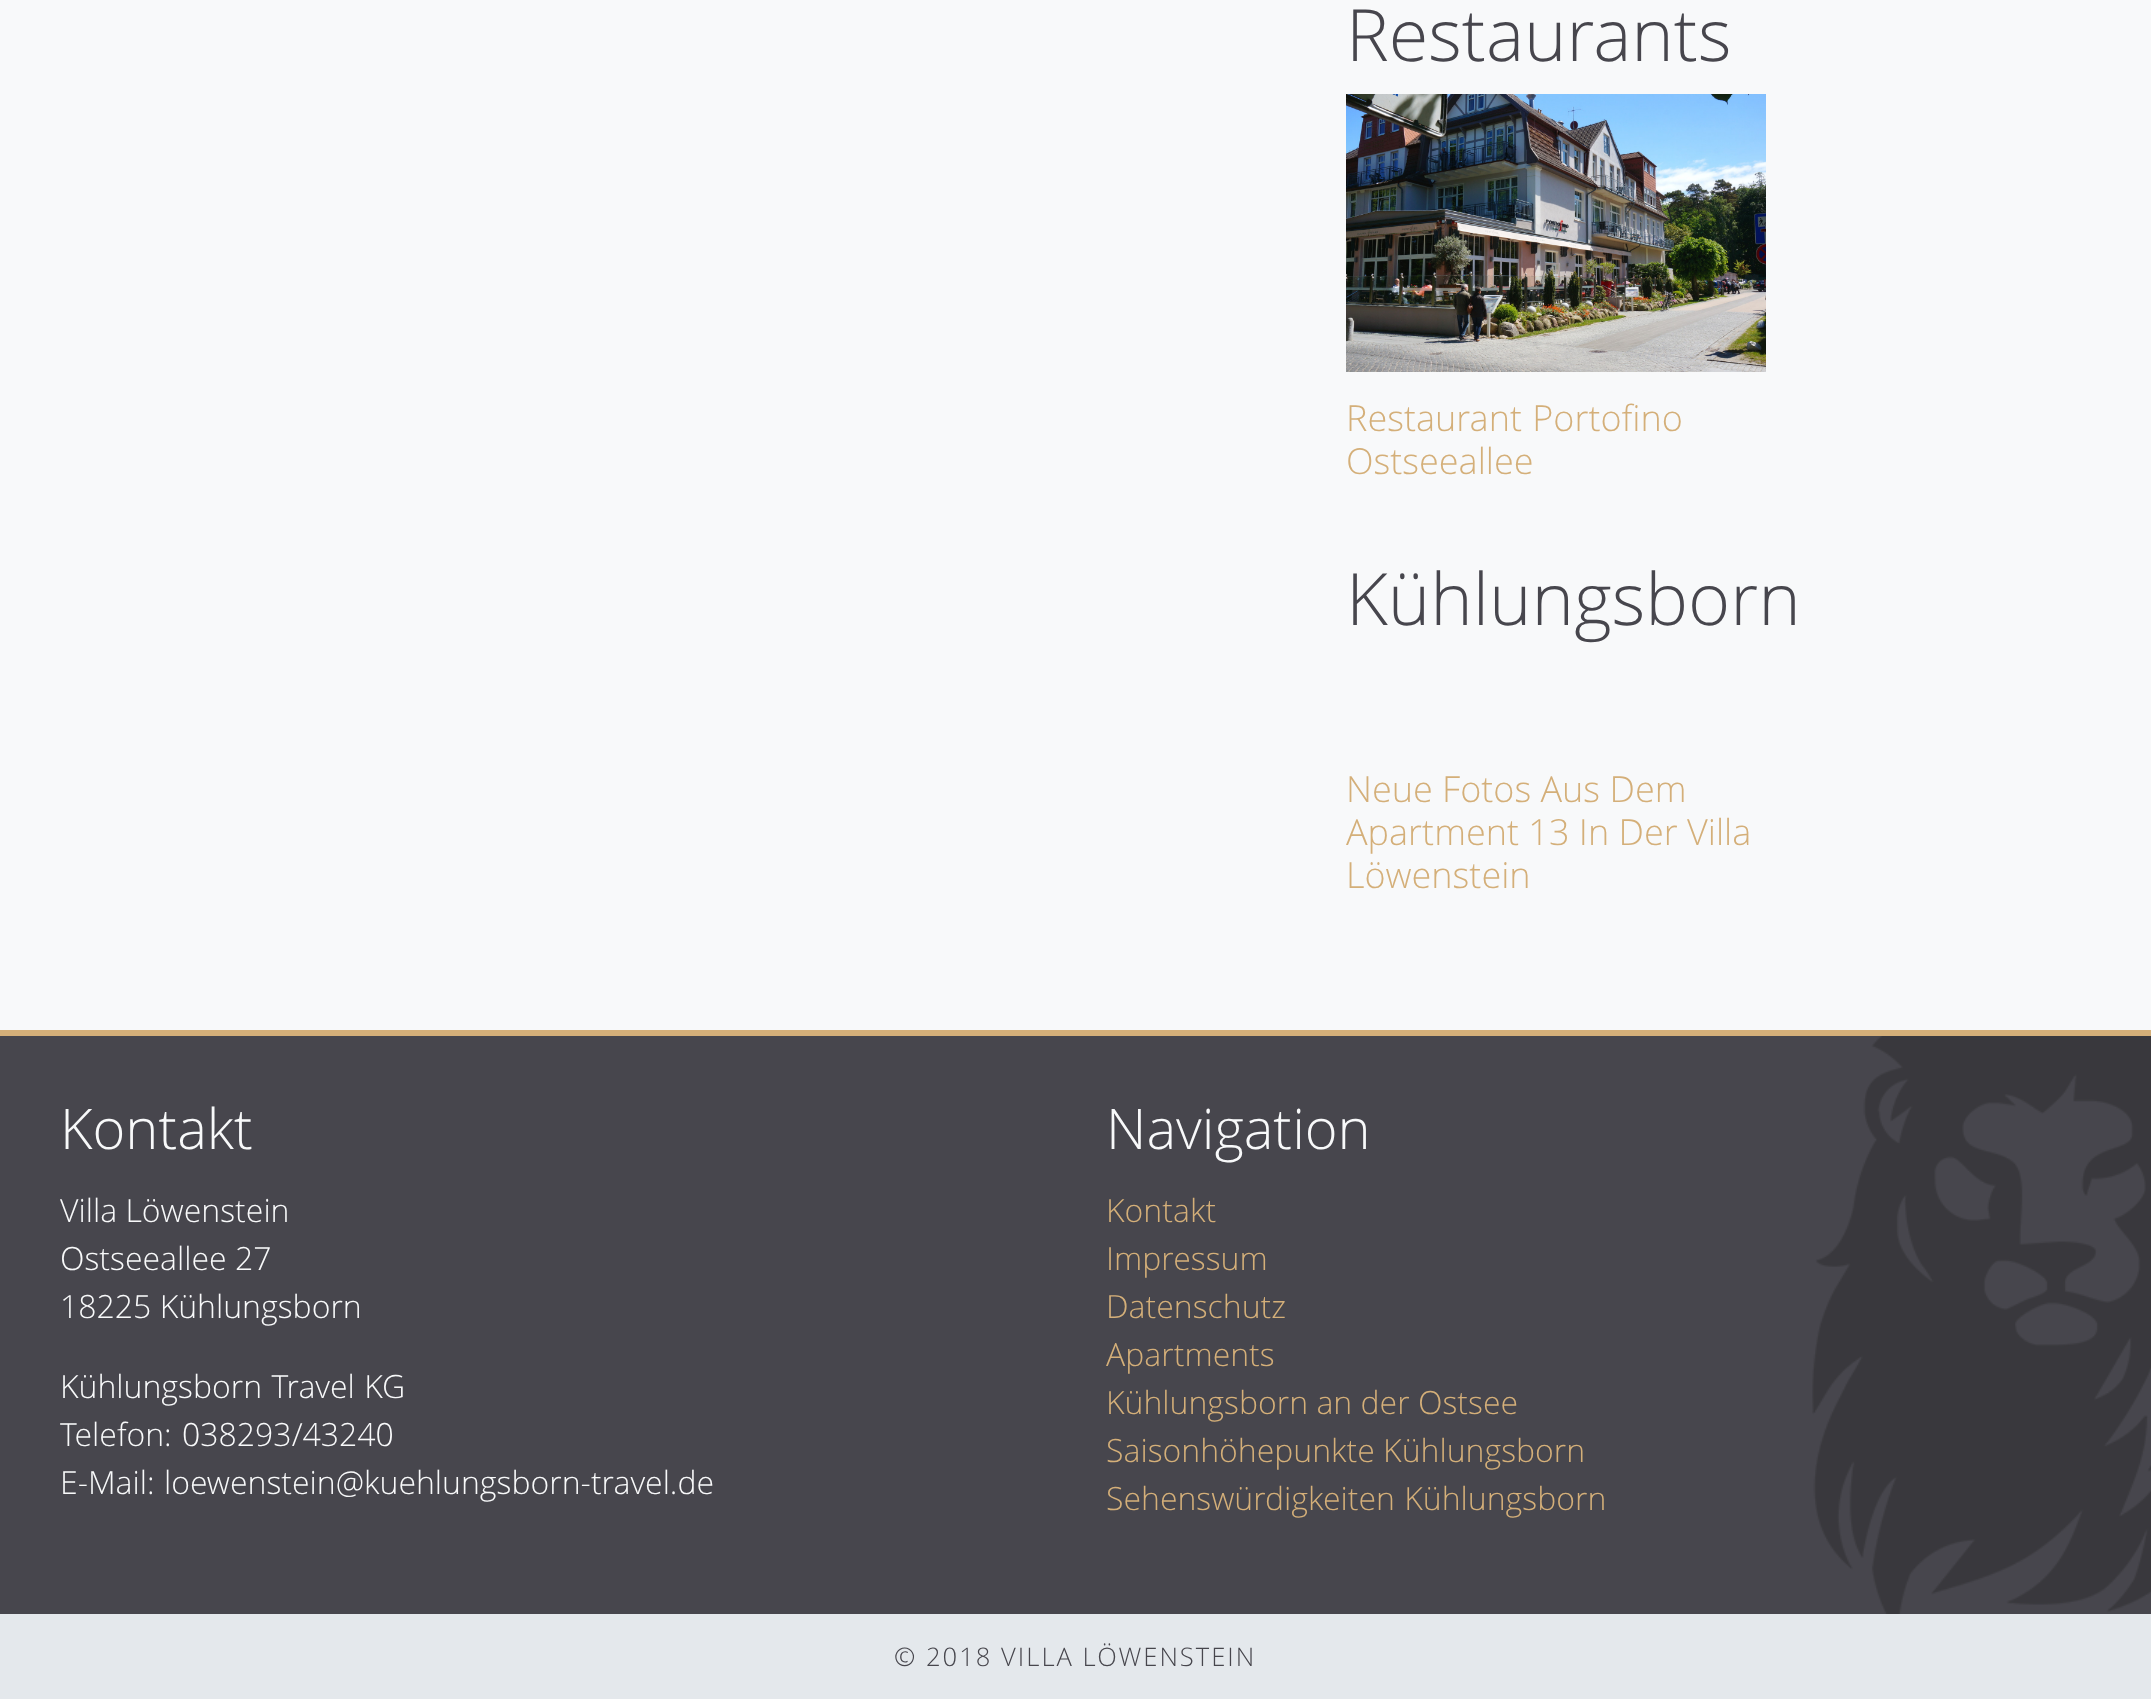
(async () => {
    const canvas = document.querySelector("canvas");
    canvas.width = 2151;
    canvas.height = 1699;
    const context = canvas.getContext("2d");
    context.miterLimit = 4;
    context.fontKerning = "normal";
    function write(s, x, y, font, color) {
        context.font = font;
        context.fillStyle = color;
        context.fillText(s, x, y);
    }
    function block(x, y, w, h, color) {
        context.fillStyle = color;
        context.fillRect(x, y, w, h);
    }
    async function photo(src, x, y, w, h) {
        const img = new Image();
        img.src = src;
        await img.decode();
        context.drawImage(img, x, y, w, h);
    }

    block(0, 0, 2151, 1699, "rgb(248, 249, 250)");
    write("Restaurants", 1346, 61, "300 72px Open Sans", "rgb(71, 70, 77)");
    await photo("media/1.png", 1346, 94, 420, 278);
    context.wordSpacing = "1px";
    write("Restaurant Portofino", 1346, 431, "300 36px Open Sans", "rgb(212, 175, 121)");
    context.wordSpacing = "0px";
    write("Ostseeallee", 1346, 474, "300 36px Open Sans", "rgb(212, 175, 121)");
    write("Kühlungsborn", 1346, 625, "300 72px Open Sans", "rgb(71, 70, 77)");
    write("Neue Fotos Aus Dem", 1346, 802, "300 36px Open Sans", "rgb(212, 175, 121)");
    write("Apartment 13 In Der Villa", 1346, 845, "300 36px Open Sans", "rgb(212, 175, 121)");
    write("Löwenstein", 1346, 888, "300 36px Open Sans", "rgb(212, 175, 121)");
    block(0, 1036, 2151, 578, "rgb(71, 70, 77)");
    block(0, 1030, 2151, 6, "rgb(212, 175, 121)");
    write("Kontakt", 60, 1149, "300 56px Open Sans", "rgb(248, 249, 250)");
    write("Villa Löwenstein", 60, 1222, "300 32px Open Sans", "rgb(248, 249, 250)");
    write("Ostseeallee 27", 60, 1270, "300 32px Open Sans", "rgb(248, 249, 250)");
    write("18225 Kühlungsborn", 60, 1318, "300 32px Open Sans", "rgb(248, 249, 250)");
    context.wordSpacing = "1px";
    write("Kühlungsborn Travel KG", 60, 1398, "300 32px Open Sans", "rgb(248, 249, 250)");
    context.wordSpacing = "2px";
    write("Telefon: 038293/43240", 60, 1446, "300 32px Open Sans", "rgb(248, 249, 250)");
    context.wordSpacing = "1px";
    write("E-Mail: loewenstein@kuehlungsborn-travel.de", 60, 1494, "300 32px Open Sans", "rgb(248, 249, 250)");
    context.wordSpacing = "0px";
    write("Navigation", 1106, 1149, "300 56px Open Sans", "rgb(248, 249, 250)");
    write("Kontakt", 1106, 1222, "300 32px Open Sans", "rgb(212, 175, 121)");
    write("Impressum", 1106, 1270, "300 32px Open Sans", "rgb(212, 175, 121)");
    write("Datenschutz", 1106, 1318, "300 32px Open Sans", "rgb(212, 175, 121)");
    write("Apartments", 1106, 1366, "300 32px Open Sans", "rgb(212, 175, 121)");
    write("Kühlungsborn an der Ostsee", 1106, 1414, "300 32px Open Sans", "rgb(212, 175, 121)");
    write("Saisonhöhepunkte Kühlungsborn", 1106, 1462, "300 32px Open Sans", "rgb(212, 175, 121)");
    context.wordSpacing = "1px";
    write("Sehenswürdigkeiten Kühlungsborn", 1106, 1510, "300 32px Open Sans", "rgb(212, 175, 121)");
    await photo("media/2.png", 1812, 1036, 339, 578);
    block(0, 1614, 2151, 85, "rgb(228, 232, 236)");
    context.letterSpacing = "2px";
    context.wordSpacing = "0px";
    write("© 2018 VILLA LÖWENSTEIN", 894, 1666, "300 25.6px Open Sans", "rgb(71, 70, 77)");
})();
